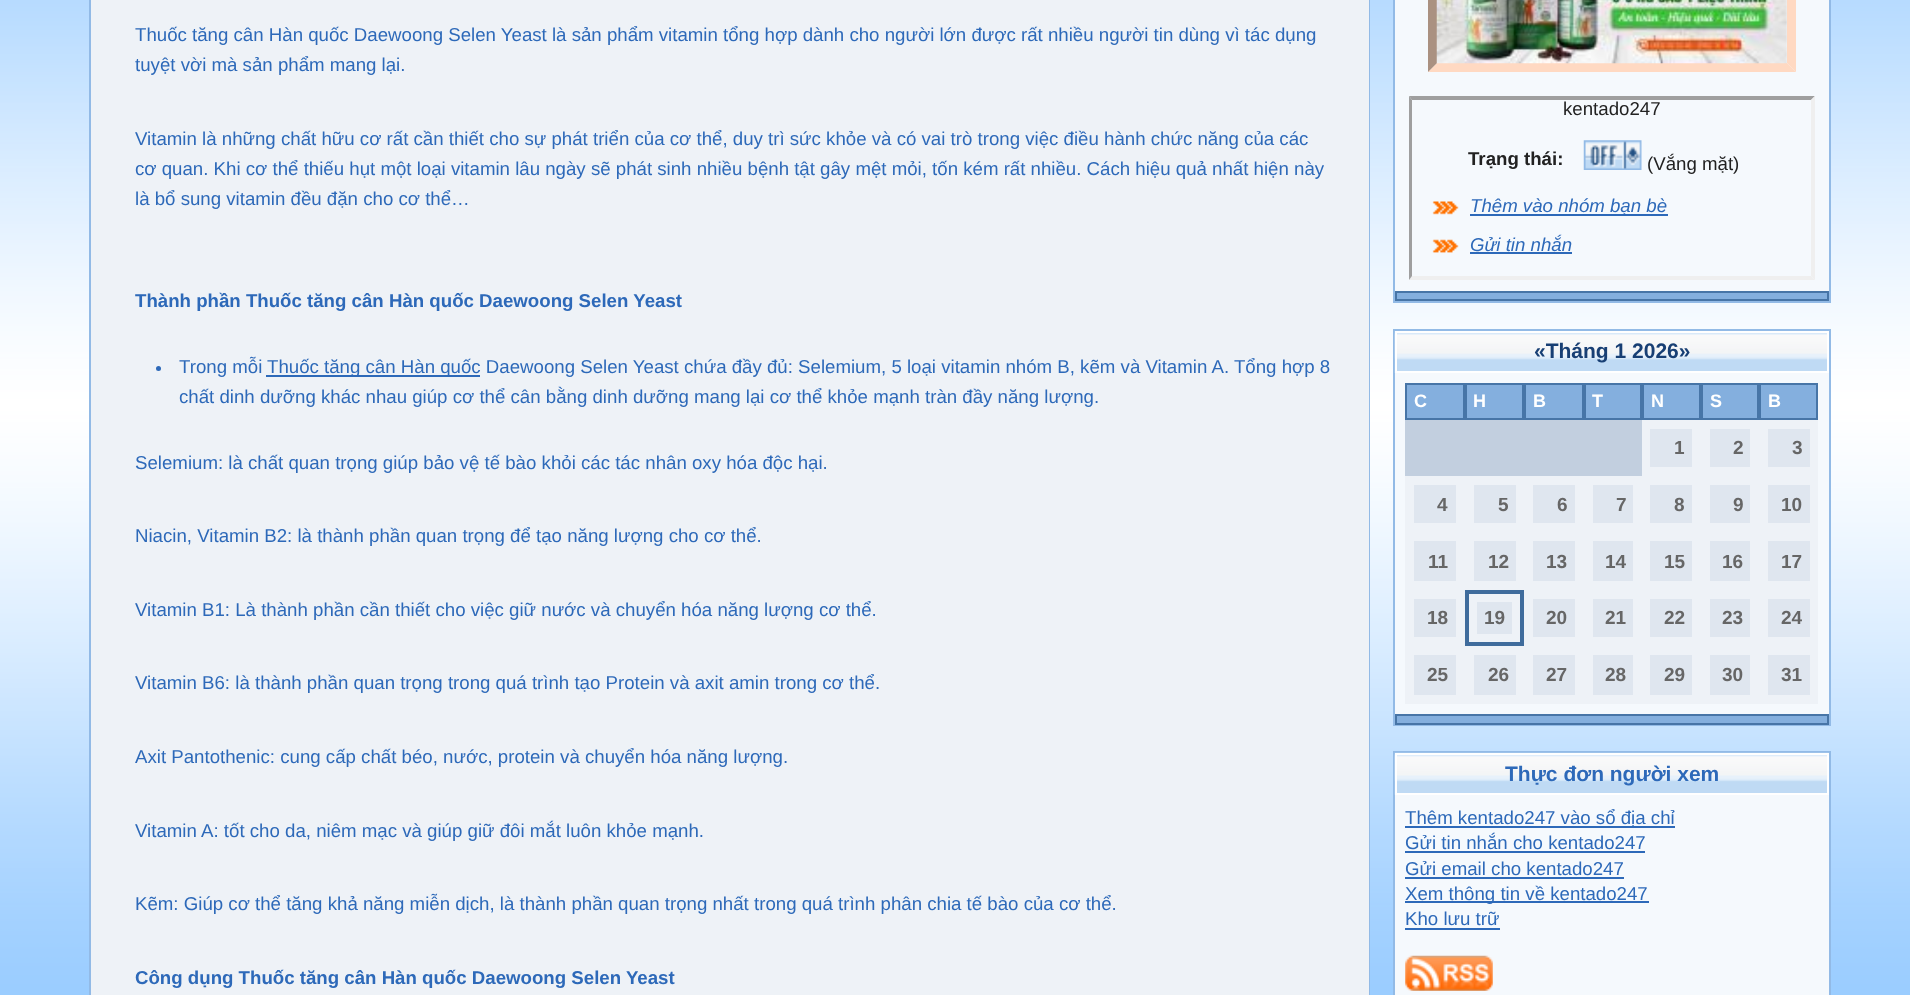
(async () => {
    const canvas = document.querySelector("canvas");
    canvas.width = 1910;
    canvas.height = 995;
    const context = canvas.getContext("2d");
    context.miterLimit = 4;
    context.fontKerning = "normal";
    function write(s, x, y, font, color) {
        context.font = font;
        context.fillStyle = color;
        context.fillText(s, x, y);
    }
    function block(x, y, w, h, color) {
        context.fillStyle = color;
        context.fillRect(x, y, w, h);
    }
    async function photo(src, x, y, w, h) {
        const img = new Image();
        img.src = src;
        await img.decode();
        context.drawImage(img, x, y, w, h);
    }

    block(0, 0, 1910, 995, "rgb(255, 255, 255)");
    await photo("media/1.png", 0, 0, 1910, 995);
    context.strokeStyle = "rgb(146, 186, 230)";
    context.lineWidth = 2;
    context.strokeRect(90, -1, 1279, 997);
    block(91, 0, 1278, 995, "rgb(238, 242, 247)");
    write("Thuốc tăng cân Hàn quốc Daewoong Selen Yeast là sản phẩm vitamin tổng hợp dành cho người lớn được rất nhiều người tin dùng vì tác dụng", 135, 41, "18.67px Liberation Sans", "rgb(45, 105, 185)");
    write("tuyệt vời mà sản phẩm mang lại.", 135, 71, "18.67px Liberation Sans", "rgb(45, 105, 185)");
    write("Vitamin là những chất hữu cơ rất cần thiết cho sự phát triển của cơ thể, duy trì sức khỏe và có vai trò trong việc điều hành chức năng của các", 135, 145, "18.67px Liberation Sans", "rgb(45, 105, 185)");
    write("cơ quan. Khi cơ thể thiếu hụt một loại vitamin lâu ngày sẽ phát sinh nhiều bệnh tật gây mệt mỏi, tốn kém rất nhiều. Cách hiệu quả nhất hiện này", 135, 175, "18.67px Liberation Sans", "rgb(45, 105, 185)");
    write("là bổ sung vitamin đều đặn cho cơ thể…", 135, 205, "18.67px Liberation Sans", "rgb(45, 105, 185)");
    write("Thành phần Thuốc tăng cân Hàn quốc Daewoong Selen Yeast", 135, 307, "bold 18.67px Liberation Sans", "rgb(45, 105, 185)");
    context.beginPath();
    context.arc(158.5, 368.5, 2.5, 0, Math.PI * 2);
    context.fill();
    write("Trong mỗi", 179, 373, "18.67px Liberation Sans", "rgb(45, 105, 185)");
    block(266, 375, 214, 2, "rgb(45, 105, 185)");
    write("Thuốc tăng cân Hàn quốc Daewoong Selen Yeast chứa đầy đủ: Selemium, 5 loại vitamin nhóm B, kẽm và Vitamin A. Tổng hợp 8", 267, 373, "18.67px Liberation Sans", "rgb(45, 105, 185)");
    write("chất dinh dưỡng khác nhau giúp cơ thể cân bằng dinh dưỡng mang lại cơ thể khỏe mạnh tràn đầy năng lượng.", 179, 403, "18.67px Liberation Sans", "rgb(45, 105, 185)");
    write("Selemium: là chất quan trọng giúp bảo vệ tế bào khỏi các tác nhân oxy hóa độc hại.", 135, 469, "18.67px Liberation Sans", "rgb(45, 105, 185)");
    write("Niacin, Vitamin B2: là thành phần quan trọng để tạo năng lượng cho cơ thể.", 135, 542, "18.67px Liberation Sans", "rgb(45, 105, 185)");
    write("Vitamin B1: Là thành phần cần thiết cho việc giữ nước và chuyển hóa năng lượng cơ thể.", 135, 616, "18.67px Liberation Sans", "rgb(45, 105, 185)");
    write("Vitamin B6: là thành phần quan trọng trong quá trình tạo Protein và axit amin trong cơ thể.", 135, 689, "18.67px Liberation Sans", "rgb(45, 105, 185)");
    write("Axit Pantothenic: cung cấp chất béo, nước, protein và chuyển hóa năng lượng.", 135, 763, "18.67px Liberation Sans", "rgb(45, 105, 185)");
    write("Vitamin A: tốt cho da, niêm mạc và giúp giữ đôi mắt luôn khỏe mạnh.", 135, 837, "18.67px Liberation Sans", "rgb(45, 105, 185)");
    write("Kẽm: Giúp cơ thể tăng khả năng miễn dịch, là thành phần quan trọng nhất trong quá trình phân chia tế bào của cơ thể.", 135, 910, "18.67px Liberation Sans", "rgb(45, 105, 185)");
    write("Công dụng Thuốc tăng cân Hàn quốc Daewoong Selen Yeast", 135, 984, "bold 18.67px Liberation Sans", "rgb(45, 105, 185)");
    context.strokeRect(1394, -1, 436, 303);
    block(1395, 0, 434, 291, "rgb(245, 249, 253)");
    context.fillStyle = "rgb(255, 217, 194)";
    context.beginPath();
    context.moveTo(1796, -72);
    context.lineTo(1796, 72);
    context.lineTo(1787, 63);
    context.lineTo(1787, -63);
    context.closePath();
    context.fill();
    context.beginPath();
    context.moveTo(1796, 72);
    context.lineTo(1428, 72);
    context.lineTo(1437, 63);
    context.lineTo(1787, 63);
    context.closePath();
    context.fill();
    context.fillStyle = "rgb(170, 145, 129)";
    context.beginPath();
    context.moveTo(1428, 72);
    context.lineTo(1428, -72);
    context.lineTo(1437, -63);
    context.lineTo(1437, 63);
    context.closePath();
    context.fill();
    await photo("media/2.png", 1436, 0, 351, 64);
    context.fillStyle = "rgb(159, 159, 159)";
    context.beginPath();
    context.moveTo(1409, 96);
    context.lineTo(1815, 96);
    context.lineTo(1811, 100);
    context.lineTo(1412, 100);
    context.closePath();
    context.fill();
    context.fillStyle = "rgb(239, 239, 239)";
    context.beginPath();
    context.moveTo(1815, 96);
    context.lineTo(1815, 280);
    context.lineTo(1811, 276);
    context.lineTo(1811, 100);
    context.closePath();
    context.fill();
    context.beginPath();
    context.moveTo(1815, 280);
    context.lineTo(1409, 280);
    context.lineTo(1412, 276);
    context.lineTo(1811, 276);
    context.closePath();
    context.fill();
    context.fillStyle = "rgb(159, 159, 159)";
    context.beginPath();
    context.moveTo(1409, 280);
    context.lineTo(1409, 96);
    context.lineTo(1412, 100);
    context.lineTo(1412, 276);
    context.closePath();
    context.fill();
    write("kentado247", 1563, 115, "18.67px Liberation Sans", "rgb(34, 34, 34)");
    write("Trạng thái:", 1468, 165, "bold 18.67px Liberation Sans", "rgb(34, 34, 34)");
    await photo("media/3.png", 1583, 140, 59, 30);
    write("(Vắng mặt)", 1647, 170, "18.67px Liberation Sans", "rgb(34, 34, 34)");
    await photo("media/4.png", 1432, 201, 27, 14);
    block(1470, 214, 198, 2, "rgb(45, 105, 185)");
    write("Thêm vào nhóm bạn bè", 1470, 212, "italic 18.67px Liberation Sans", "rgb(45, 105, 185)");
    await photo("media/5.png", 1432, 239, 27, 14);
    write("Gửi tin nhắn", 1470, 251, "italic 18.67px Liberation Sans", "rgb(45, 105, 185)");
    block(1470, 252, 102, 2, "rgb(45, 105, 185)");
    context.fillStyle = "rgb(132, 175, 222)";
    context.beginPath();
    context.rect(1396, 292, 432, 8);
    context.fill();
    context.strokeStyle = "rgb(71, 117, 167)";
    context.stroke();
    context.strokeStyle = "rgb(146, 186, 230)";
    context.strokeRect(1394, 330, 436, 395);
    await photo("media/6.png", 1394, 331, 433, 42);
    context.strokeStyle = "rgb(255, 255, 255)";
    context.strokeRect(1396, 332, 432, 40);
    write("«Tháng 1 2026»", 1534, 358, "bold 21px Liberation Sans", "rgb(24, 63, 116)");
    block(1395, 373, 434, 341, "rgb(245, 249, 253)");
    context.fillStyle = "rgb(132, 175, 222)";
    context.beginPath();
    context.rect(1406, 384, 58, 35);
    context.fill();
    context.strokeStyle = "rgb(71, 117, 167)";
    context.stroke();
    write("C", 1414, 407, "bold 18px Liberation Sans", "rgb(255, 255, 255)");
    context.fillStyle = "rgb(132, 175, 222)";
    context.beginPath();
    context.rect(1466, 384, 57, 35);
    context.fill();
    context.stroke();
    write("H", 1473, 407, "bold 18px Liberation Sans", "rgb(255, 255, 255)");
    context.fillStyle = "rgb(132, 175, 222)";
    context.beginPath();
    context.rect(1525, 384, 58, 35);
    context.fill();
    context.stroke();
    write("B", 1533, 407, "bold 18px Liberation Sans", "rgb(255, 255, 255)");
    context.fillStyle = "rgb(132, 175, 222)";
    context.beginPath();
    context.rect(1585, 384, 56, 35);
    context.fill();
    context.stroke();
    write("T", 1592, 407, "bold 18px Liberation Sans", "rgb(255, 255, 255)");
    context.fillStyle = "rgb(132, 175, 222)";
    context.beginPath();
    context.rect(1643, 384, 57, 35);
    context.fill();
    context.stroke();
    write("N", 1651, 407, "bold 18px Liberation Sans", "rgb(255, 255, 255)");
    context.fillStyle = "rgb(132, 175, 222)";
    context.beginPath();
    context.rect(1702, 384, 56, 35);
    context.fill();
    context.stroke();
    write("S", 1710, 407, "bold 18px Liberation Sans", "rgb(255, 255, 255)");
    context.fillStyle = "rgb(132, 175, 222)";
    context.beginPath();
    context.rect(1760, 384, 57, 35);
    context.fill();
    context.stroke();
    write("B", 1768, 407, "bold 18px Liberation Sans", "rgb(255, 255, 255)");
    block(1405, 420, 237, 56, "rgb(194, 207, 223)");
    block(1642, 420, 176, 56, "rgb(238, 242, 247)");
    block(1650, 429, 42, 38, "rgb(223, 230, 239)");
    write("1", 1674, 454, "bold 19px Liberation Sans", "rgb(102, 102, 102)");
    block(1710, 429, 40, 38, "rgb(223, 230, 239)");
    write("2", 1733, 454, "bold 19px Liberation Sans", "rgb(102, 102, 102)");
    block(1768, 429, 42, 38, "rgb(223, 230, 239)");
    write("3", 1792, 454, "bold 19px Liberation Sans", "rgb(102, 102, 102)");
    block(1405, 476, 413, 56, "rgb(238, 242, 247)");
    block(1414, 485, 42, 38, "rgb(223, 230, 239)");
    write("4", 1437, 511, "bold 19px Liberation Sans", "rgb(102, 102, 102)");
    block(1474, 485, 42, 38, "rgb(223, 230, 239)");
    write("5", 1498, 511, "bold 19px Liberation Sans", "rgb(102, 102, 102)");
    block(1533, 485, 42, 38, "rgb(223, 230, 239)");
    write("6", 1557, 511, "bold 19px Liberation Sans", "rgb(102, 102, 102)");
    block(1593, 485, 40, 38, "rgb(223, 230, 239)");
    write("7", 1616, 511, "bold 19px Liberation Sans", "rgb(102, 102, 102)");
    block(1650, 485, 42, 38, "rgb(223, 230, 239)");
    write("8", 1674, 511, "bold 19px Liberation Sans", "rgb(102, 102, 102)");
    block(1710, 485, 40, 38, "rgb(223, 230, 239)");
    write("9", 1733, 511, "bold 19px Liberation Sans", "rgb(102, 102, 102)");
    block(1768, 485, 42, 38, "rgb(223, 230, 239)");
    write("10", 1781, 511, "bold 19px Liberation Sans", "rgb(102, 102, 102)");
    block(1405, 532, 413, 58, "rgb(238, 242, 247)");
    block(1414, 541, 42, 40, "rgb(223, 230, 239)");
    write("11", 1428, 568, "bold 19px Liberation Sans", "rgb(102, 102, 102)");
    block(1474, 541, 42, 40, "rgb(223, 230, 239)");
    write("12", 1488, 568, "bold 19px Liberation Sans", "rgb(102, 102, 102)");
    block(1533, 541, 42, 40, "rgb(223, 230, 239)");
    write("13", 1546, 568, "bold 19px Liberation Sans", "rgb(102, 102, 102)");
    block(1593, 541, 40, 40, "rgb(223, 230, 239)");
    write("14", 1605, 568, "bold 19px Liberation Sans", "rgb(102, 102, 102)");
    block(1650, 541, 42, 40, "rgb(223, 230, 239)");
    write("15", 1664, 568, "bold 19px Liberation Sans", "rgb(102, 102, 102)");
    block(1710, 541, 40, 40, "rgb(223, 230, 239)");
    write("16", 1722, 568, "bold 19px Liberation Sans", "rgb(102, 102, 102)");
    block(1768, 541, 42, 40, "rgb(223, 230, 239)");
    write("17", 1781, 568, "bold 19px Liberation Sans", "rgb(102, 102, 102)");
    block(1405, 590, 60, 114, "rgb(238, 242, 247)");
    block(1414, 599, 42, 38, "rgb(223, 230, 239)");
    write("18", 1427, 624, "bold 19px Liberation Sans", "rgb(102, 102, 102)");
    context.fillStyle = "rgb(238, 242, 247)";
    context.beginPath();
    context.rect(1467, 592, 55, 52);
    context.fill();
    context.strokeStyle = "rgb(63, 108, 156)";
    context.lineWidth = 4;
    context.stroke();
    block(1477, 602, 35, 32, "rgb(223, 230, 239)");
    write("19", 1484, 624, "bold 19px Liberation Sans", "rgb(102, 102, 102)");
    block(1524, 590, 294, 56, "rgb(238, 242, 247)");
    block(1533, 599, 42, 38, "rgb(223, 230, 239)");
    write("20", 1546, 624, "bold 19px Liberation Sans", "rgb(102, 102, 102)");
    block(1593, 599, 40, 38, "rgb(223, 230, 239)");
    write("21", 1605, 624, "bold 19px Liberation Sans", "rgb(102, 102, 102)");
    block(1650, 599, 42, 38, "rgb(223, 230, 239)");
    write("22", 1664, 624, "bold 19px Liberation Sans", "rgb(102, 102, 102)");
    block(1710, 599, 40, 38, "rgb(223, 230, 239)");
    write("23", 1722, 624, "bold 19px Liberation Sans", "rgb(102, 102, 102)");
    block(1768, 599, 42, 38, "rgb(223, 230, 239)");
    write("24", 1781, 624, "bold 19px Liberation Sans", "rgb(102, 102, 102)");
    block(1414, 655, 42, 40, "rgb(223, 230, 239)");
    write("25", 1427, 681, "bold 19px Liberation Sans", "rgb(102, 102, 102)");
    block(1465, 646, 353, 58, "rgb(238, 242, 247)");
    block(1474, 655, 42, 40, "rgb(223, 230, 239)");
    write("26", 1488, 681, "bold 19px Liberation Sans", "rgb(102, 102, 102)");
    block(1533, 655, 42, 40, "rgb(223, 230, 239)");
    write("27", 1546, 681, "bold 19px Liberation Sans", "rgb(102, 102, 102)");
    block(1593, 655, 40, 40, "rgb(223, 230, 239)");
    write("28", 1605, 681, "bold 19px Liberation Sans", "rgb(102, 102, 102)");
    block(1650, 655, 42, 40, "rgb(223, 230, 239)");
    write("29", 1664, 681, "bold 19px Liberation Sans", "rgb(102, 102, 102)");
    block(1710, 655, 40, 40, "rgb(223, 230, 239)");
    write("30", 1722, 681, "bold 19px Liberation Sans", "rgb(102, 102, 102)");
    block(1768, 655, 42, 40, "rgb(223, 230, 239)");
    write("31", 1781, 681, "bold 19px Liberation Sans", "rgb(102, 102, 102)");
    context.fillStyle = "rgb(132, 175, 222)";
    context.beginPath();
    context.rect(1396, 715, 432, 9);
    context.fill();
    context.strokeStyle = "rgb(71, 117, 167)";
    context.lineWidth = 2;
    context.stroke();
    context.strokeStyle = "rgb(146, 186, 230)";
    context.strokeRect(1394, 752, 436, 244);
    await photo("media/7.png", 1394, 752, 435, 43);
    context.strokeStyle = "rgb(255, 255, 255)";
    context.strokeRect(1396, 754, 432, 40);
    write("Thực đơn người xem", 1505, 781, "bold 21px Liberation Sans", "rgb(45, 105, 185)");
    block(1395, 795, 434, 200, "rgb(245, 249, 253)");
    block(1405, 826, 270, 2, "rgb(45, 105, 185)");
    write("Thêm kentado247 vào sổ địa chỉ", 1405, 824, "18.67px Liberation Sans", "rgb(45, 105, 185)");
    write("Gửi tin nhắn cho kentado247", 1405, 849, "18.67px Liberation Sans", "rgb(45, 105, 185)");
    block(1405, 851, 240, 2, "rgb(45, 105, 185)");
    write("Gửi email cho kentado247", 1405, 875, "18.67px Liberation Sans", "rgb(45, 105, 185)");
    block(1405, 877, 219, 2, "rgb(45, 105, 185)");
    block(1405, 901, 244, 2, "rgb(45, 105, 185)");
    write("Xem thông tin về kentado247", 1405, 900, "18.67px Liberation Sans", "rgb(45, 105, 185)");
    write("Kho lưu trữ", 1405, 925, "18.67px Liberation Sans", "rgb(45, 105, 185)");
    block(1405, 928, 95, 2, "rgb(45, 105, 185)");
    await photo("media/8.png", 1405, 955, 88, 36);
})();
